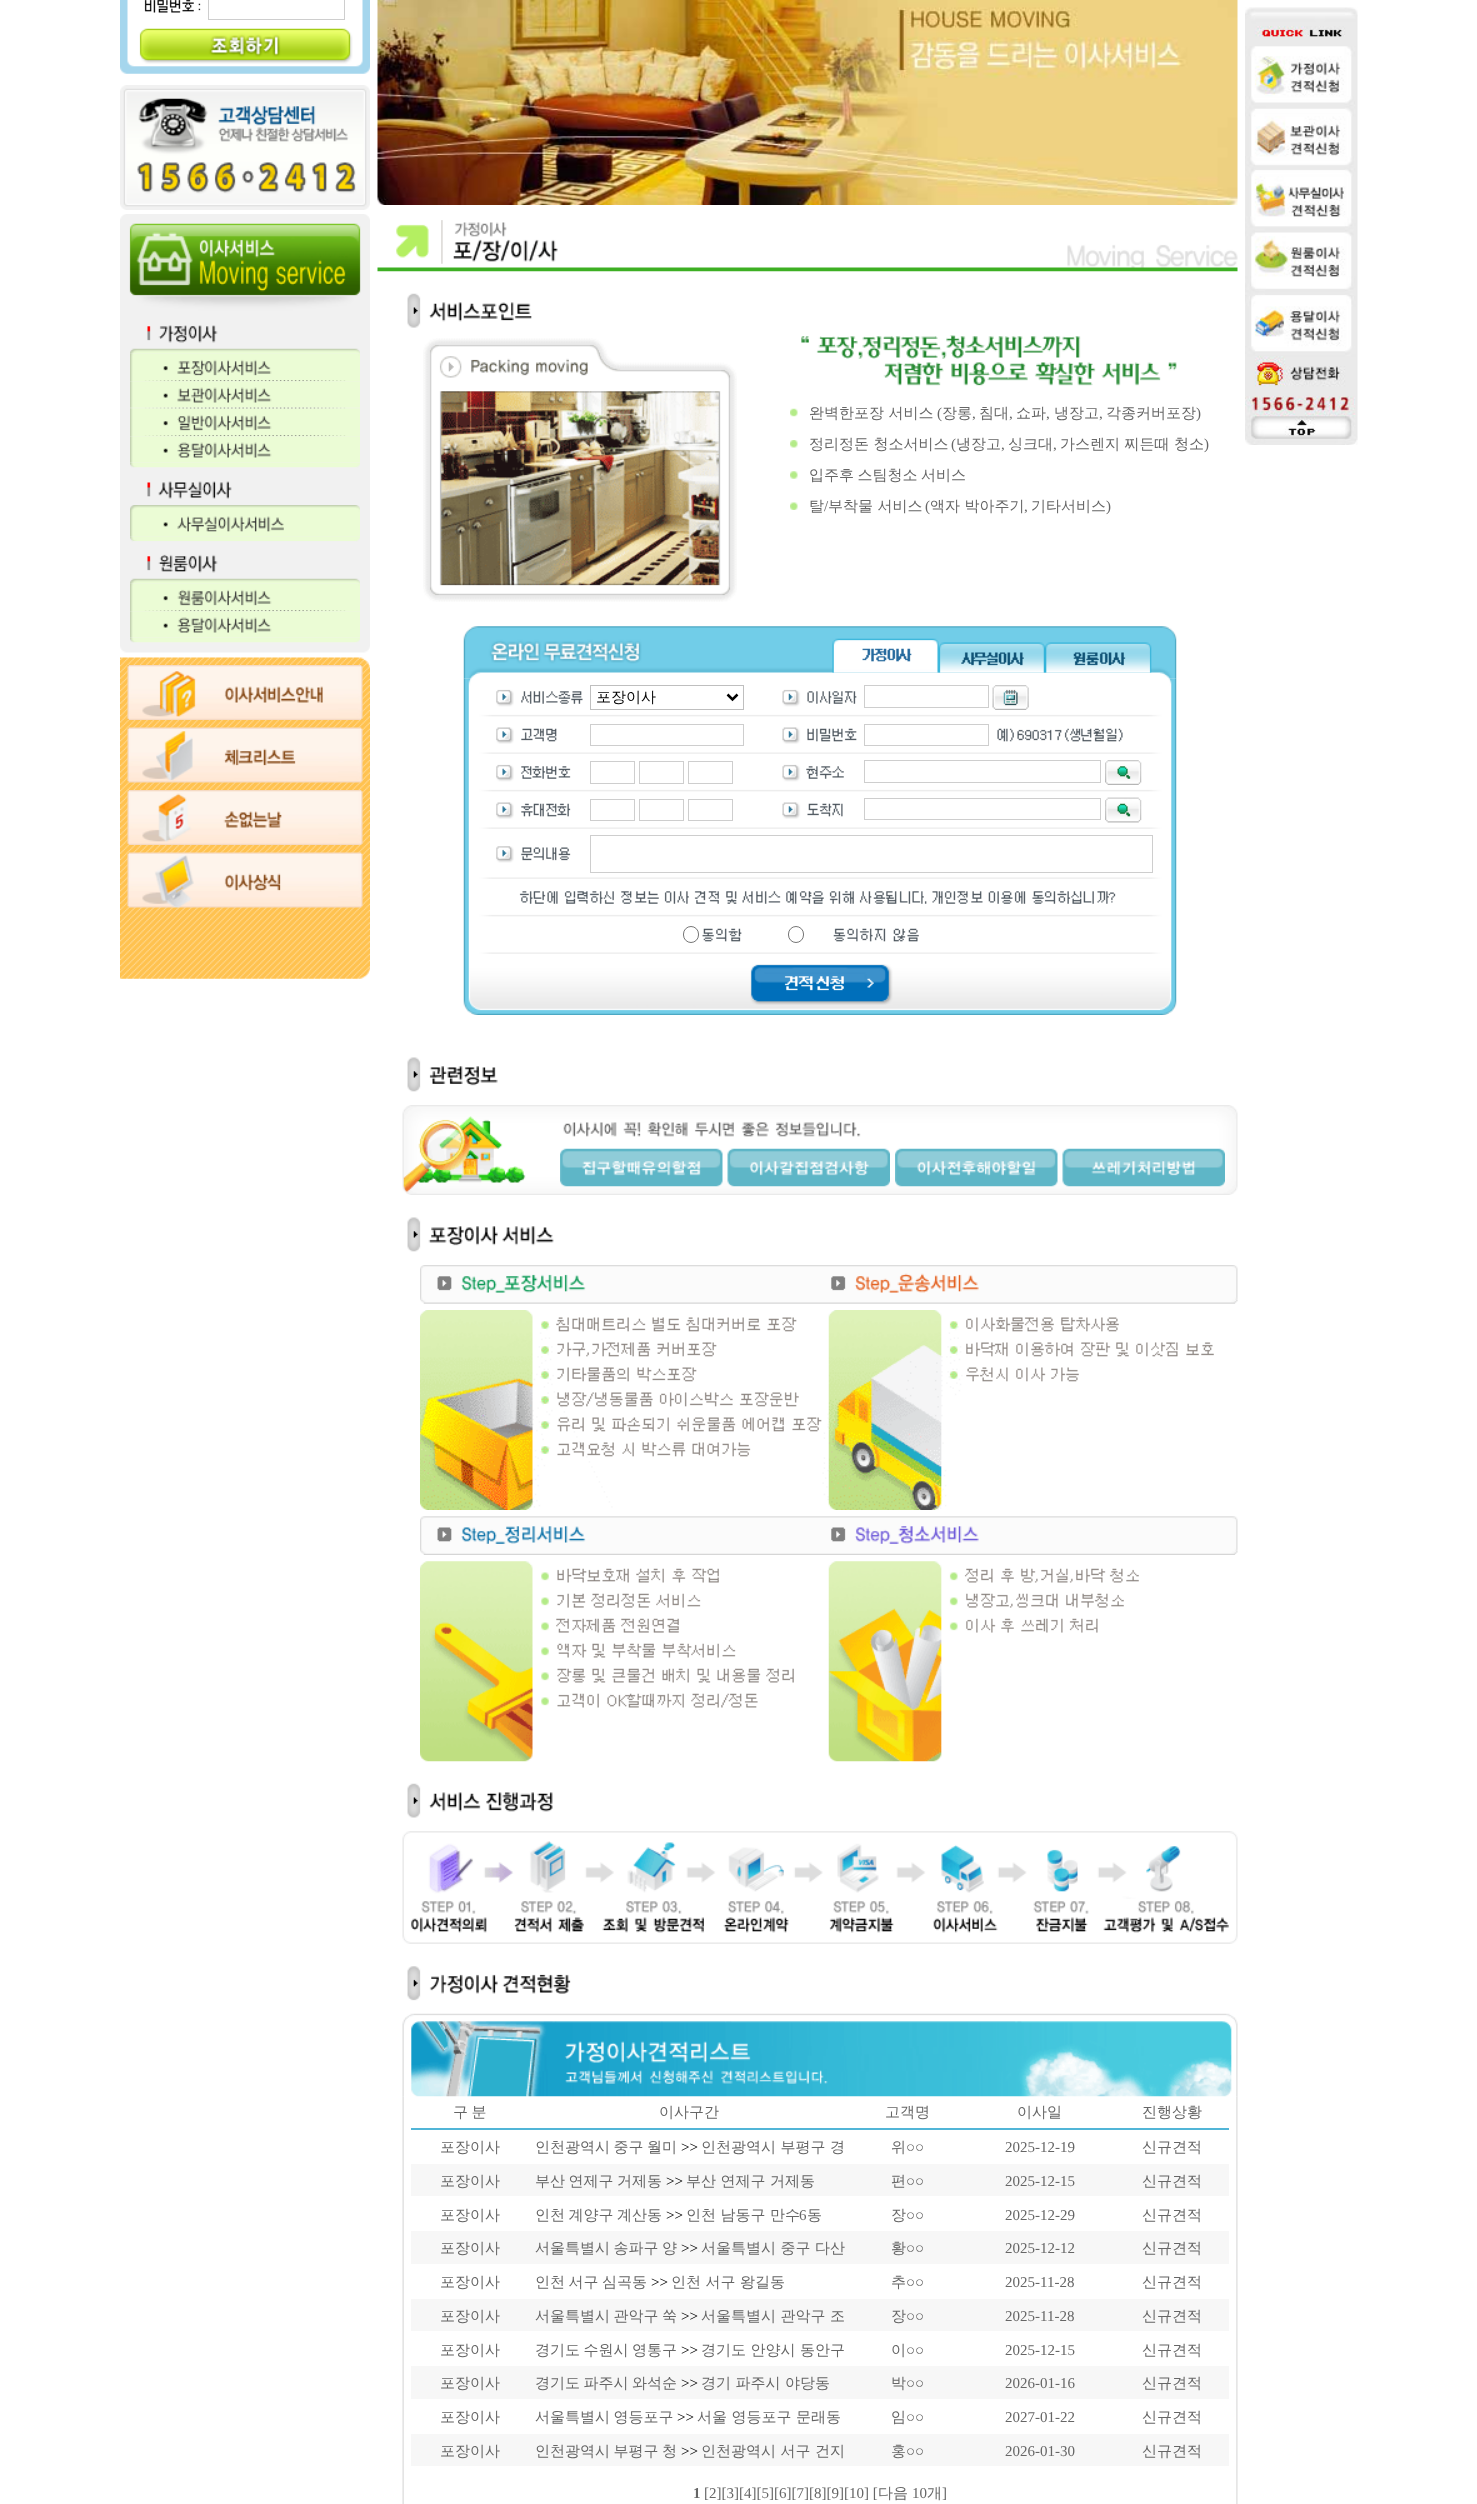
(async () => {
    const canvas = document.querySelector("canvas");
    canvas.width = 1477;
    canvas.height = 2504;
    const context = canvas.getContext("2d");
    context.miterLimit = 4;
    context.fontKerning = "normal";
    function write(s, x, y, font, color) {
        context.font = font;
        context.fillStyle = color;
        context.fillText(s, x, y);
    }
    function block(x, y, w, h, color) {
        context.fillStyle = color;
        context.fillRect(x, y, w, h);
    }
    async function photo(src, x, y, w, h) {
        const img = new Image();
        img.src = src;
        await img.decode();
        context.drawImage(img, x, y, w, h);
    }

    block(0, 0, 1477, 2504, "rgb(255, 255, 255)");
    await photo("media/1.png", 120, 0, 250, 74);
    context.strokeStyle = "rgb(206, 206, 206)";
    context.strokeRect(208.5, -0.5, 136, 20);
    await photo("media/2.png", 139, 28, 214, 36);
    await photo("media/3.png", 120, 85, 250, 125);
    await photo("media/4.png", 377, 0, 861, 205);
    await photo("media/5.png", 1245, 7, 113, 438);
    await photo("media/6.png", 120, 214, 250, 97);
    block(120, 311, 250, 332, "rgb(241, 241, 241)");
    await photo("media/7.png", 147, 325, 71, 18);
    await photo("media/8.png", 130, 348, 230, 6);
    await photo("media/9.png", 130, 353, 230, 27);
    await photo("media/10.png", 130, 380, 230, 2);
    await photo("media/11.png", 130, 381, 230, 27);
    await photo("media/12.png", 130, 407, 230, 2);
    await photo("media/13.png", 130, 408, 230, 27);
    await photo("media/10.png", 130, 435, 230, 2);
    await photo("media/14.png", 130, 436, 230, 27);
    await photo("media/15.png", 130, 462, 230, 6);
    await photo("media/16.png", 132, 467, 225, 32);
    await photo("media/17.png", 130, 505, 230, 5);
    await photo("media/18.png", 130, 510, 230, 27);
    await photo("media/19.png", 130, 536, 230, 6);
    await photo("media/20.png", 133, 541, 223, 32);
    await photo("media/8.png", 130, 578, 230, 6);
    await photo("media/21.png", 130, 583, 230, 27);
    await photo("media/10.png", 130, 610, 230, 2);
    await photo("media/14.png", 130, 611, 230, 27);
    await photo("media/15.png", 130, 637, 230, 6);
    await photo("media/22.png", 120, 642, 250, 11);
    await photo("media/23.png", 120, 657, 250, 322);
    await photo("media/24.png", 127, 665, 236, 55);
    await photo("media/25.png", 127, 727, 236, 56);
    await photo("media/26.png", 127, 790, 236, 55);
    await photo("media/27.png", 127, 852, 236, 56);
    await photo("media/28.png", 377, 220, 861, 52);
    await photo("media/29.png", 407, 293, 125, 35);
    await photo("media/30.png", 423, 338, 314, 264);
    await photo("media/31.png", 801, 335, 376, 51);
    await photo("media/32.png", 790, 408, 8, 9);
    write("완벽한포장 서비스", 809, 418, "500 15px WenQuanYi Zen Hei", "rgb(102, 102, 102)");
    write("(", 937, 418, "15px Liberation Serif", "rgb(102, 102, 102)");
    write("장롱", 942, 418, "500 15px WenQuanYi Zen Hei", "rgb(102, 102, 102)");
    write(",", 972, 418, "15px Liberation Serif", "rgb(102, 102, 102)");
    write("침대", 979, 418, "500 15px WenQuanYi Zen Hei", "rgb(102, 102, 102)");
    write(",", 1009, 418, "15px Liberation Serif", "rgb(102, 102, 102)");
    write("쇼파", 1016, 418, "500 15px WenQuanYi Zen Hei", "rgb(102, 102, 102)");
    write(",", 1046, 418, "15px Liberation Serif", "rgb(102, 102, 102)");
    write("냉장고", 1054, 418, "500 15px WenQuanYi Zen Hei", "rgb(102, 102, 102)");
    write(",", 1099, 418, "15px Liberation Serif", "rgb(102, 102, 102)");
    write("각종커버포장", 1106, 418, "500 15px WenQuanYi Zen Hei", "rgb(102, 102, 102)");
    write(")", 1196, 418, "15px Liberation Serif", "rgb(102, 102, 102)");
    await photo("media/33.png", 790, 440, 8, 8);
    write("정리정돈 청소서비스", 809, 449, "500 15px WenQuanYi Zen Hei", "rgb(102, 102, 102)");
    write("(", 951, 449, "15px Liberation Serif", "rgb(102, 102, 102)");
    write("냉장고", 956, 449, "500 15px WenQuanYi Zen Hei", "rgb(102, 102, 102)");
    write(",", 1001, 449, "15px Liberation Serif", "rgb(102, 102, 102)");
    write("싱크대", 1008, 449, "500 15px WenQuanYi Zen Hei", "rgb(102, 102, 102)");
    write(",", 1053, 449, "15px Liberation Serif", "rgb(102, 102, 102)");
    write("가스렌지 찌든때 청소", 1060, 449, "500 15px WenQuanYi Zen Hei", "rgb(102, 102, 102)");
    write(")", 1204, 449, "15px Liberation Serif", "rgb(102, 102, 102)");
    await photo("media/34.png", 790, 471, 8, 8);
    context.wordSpacing = "-1px";
    write("입주후 스팀청소 서비스", 809, 480, "500 15px WenQuanYi Zen Hei", "rgb(102, 102, 102)");
    await photo("media/35.png", 790, 502, 8, 8);
    context.wordSpacing = "0px";
    write("탈", 809, 511, "500 15px WenQuanYi Zen Hei", "rgb(102, 102, 102)");
    write("/", 824, 511, "15px Liberation Serif", "rgb(102, 102, 102)");
    write("부착물 서비스", 828, 511, "500 15px WenQuanYi Zen Hei", "rgb(102, 102, 102)");
    write("(", 925, 511, "15px Liberation Serif", "rgb(102, 102, 102)");
    write("액자 박아주기", 930, 511, "500 15px WenQuanYi Zen Hei", "rgb(102, 102, 102)");
    write(",", 1024, 511, "15px Liberation Serif", "rgb(102, 102, 102)");
    write("기타서비스", 1031, 511, "500 15px WenQuanYi Zen Hei", "rgb(102, 102, 102)");
    write(")", 1106, 511, "15px Liberation Serif", "rgb(102, 102, 102)");
    await photo("media/36.png", 463, 626, 714, 53);
    await photo("media/37.png", 832, 638, 107, 35);
    await photo("media/38.png", 938, 642, 107, 31);
    await photo("media/39.png", 1045, 642, 107, 31);
    await photo("media/40.png", 463, 678, 714, 337);
    context.strokeStyle = "rgb(191, 191, 191)";
    context.strokeRect(590.5, 685.5, 153, 24);
    context.beginPath();
    context.moveTo(727.5, 694.5);
    context.lineTo(732.5, 699.5);
    context.lineTo(737.5, 694.5);
    context.strokeStyle = "rgb(0, 0, 0)";
    context.lineWidth = 2.5;
    context.stroke();
    write("포장이사", 596, 702, "500 15px WenQuanYi Zen Hei", "rgb(0, 0, 0)");
    context.strokeStyle = "rgb(206, 206, 206)";
    context.lineWidth = 1;
    context.strokeRect(864.5, 685.5, 124, 22);
    await photo("media/41.png", 992, 685, 37, 25);
    context.strokeRect(590.5, 724.5, 153, 21);
    context.strokeRect(864.5, 724.5, 124, 21);
    context.strokeRect(590.5, 761.5, 44, 22);
    context.strokeRect(639.5, 761.5, 44, 22);
    context.strokeRect(688.5, 761.5, 44, 22);
    context.strokeRect(864.5, 760.5, 236, 22);
    await photo("media/42.png", 1105, 760, 37, 25);
    context.strokeRect(590.5, 799.5, 44, 21);
    context.strokeRect(639.5, 799.5, 44, 21);
    context.strokeRect(688.5, 799.5, 44, 21);
    context.strokeRect(864.5, 798.5, 236, 21);
    await photo("media/43.png", 1105, 797, 37, 26);
    context.strokeRect(590.5, 835.5, 562, 37);
    context.beginPath();
    context.roundRect(683.5, 926.5, 15, 16, 7.5);
    context.strokeStyle = "rgb(118, 118, 118)";
    context.stroke();
    context.beginPath();
    context.roundRect(788.5, 926.5, 15, 16, 7.5);
    context.stroke();
    await photo("media/44.png", 750, 964, 143, 41);
    await photo("media/45.png", 407, 1057, 91, 35);
    await photo("media/46.png", 402, 1105, 836, 90);
    await photo("media/47.png", 560, 1148, 163, 39);
    await photo("media/48.png", 727, 1148, 163, 39);
    await photo("media/49.png", 895, 1148, 163, 39);
    await photo("media/50.png", 1062, 1148, 163, 39);
    await photo("media/51.png", 407, 1217, 147, 35);
    await photo("media/52.png", 420, 1265, 818, 39);
    await photo("media/53.png", 420, 1310, 794, 200);
    await photo("media/54.png", 420, 1516, 818, 39);
    await photo("media/55.png", 420, 1561, 719, 201);
    await photo("media/56.png", 407, 1783, 146, 35);
    await photo("media/57.png", 402, 1831, 836, 113);
    await photo("media/58.png", 407, 1966, 164, 35);
    await photo("media/60.png", 402, 2096, 836, 408);
    await photo("media/59.png", 402, 2013, 836, 84);
    context.wordSpacing = "-1px";
    write("구 분", 453, 2117, "500 15px WenQuanYi Zen Hei", "rgb(102, 102, 102)");
    context.wordSpacing = "0px";
    write("이사구간", 659, 2117, "500 15px WenQuanYi Zen Hei", "rgb(102, 102, 102)");
    write("고객명", 885, 2117, "500 15px WenQuanYi Zen Hei", "rgb(102, 102, 102)");
    write("이사일", 1017, 2117, "500 15px WenQuanYi Zen Hei", "rgb(102, 102, 102)");
    write("진행상황", 1142, 2117, "500 15px WenQuanYi Zen Hei", "rgb(102, 102, 102)");
    block(411, 2128, 818, 2, "rgb(81, 181, 215)");
    write("포장이사", 440, 2152, "500 15px WenQuanYi Zen Hei", "rgb(102, 102, 102)");
    context.wordSpacing = "-1px";
    write("인천광역시 중구 월미", 535, 2152, "500 15px WenQuanYi Zen Hei", "rgb(102, 102, 102)");
    context.wordSpacing = "0px";
    write(">>", 681, 2152, "15px Liberation Serif", "rgb(0, 0, 0)");
    write("인천광역시 부평구 경", 701, 2152, "500 15px WenQuanYi Zen Hei", "rgb(102, 102, 102)");
    write("위", 891, 2152, "500 15px WenQuanYi Zen Hei", "rgb(102, 102, 102)");
    write("○○", 906, 2152, "15px Liberation Serif", "rgb(102, 102, 102)");
    write("2025-12-19", 1005, 2152, "15px Liberation Serif", "rgb(102, 102, 102)");
    write("신규견적", 1142, 2152, "500 15px WenQuanYi Zen Hei", "rgb(102, 102, 102)");
    block(411, 2164, 818, 32, "rgb(247, 247, 247)");
    write("포장이사", 440, 2186, "500 15px WenQuanYi Zen Hei", "rgb(102, 102, 102)");
    context.wordSpacing = "-1px";
    write("부산 연제구 거제동", 535, 2186, "500 15px WenQuanYi Zen Hei", "rgb(102, 102, 102)");
    context.wordSpacing = "0px";
    write(">>", 666, 2186, "15px Liberation Serif", "rgb(0, 0, 0)");
    write("부산 연제구 거제동", 686, 2186, "500 15px WenQuanYi Zen Hei", "rgb(102, 102, 102)");
    write("편", 891, 2186, "500 15px WenQuanYi Zen Hei", "rgb(102, 102, 102)");
    write("○○", 906, 2186, "15px Liberation Serif", "rgb(102, 102, 102)");
    write("2025-12-15", 1005, 2186, "15px Liberation Serif", "rgb(102, 102, 102)");
    write("신규견적", 1142, 2186, "500 15px WenQuanYi Zen Hei", "rgb(102, 102, 102)");
    write("포장이사", 440, 2220, "500 15px WenQuanYi Zen Hei", "rgb(102, 102, 102)");
    context.wordSpacing = "-1px";
    write("인천 계양구 계산동", 535, 2220, "500 15px WenQuanYi Zen Hei", "rgb(102, 102, 102)");
    context.wordSpacing = "0px";
    write(">>", 666, 2220, "15px Liberation Serif", "rgb(0, 0, 0)");
    write("인천 남동구 만수", 686, 2220, "500 15px WenQuanYi Zen Hei", "rgb(102, 102, 102)");
    write("6", 799, 2220, "15px Liberation Serif", "rgb(102, 102, 102)");
    write("동", 807, 2220, "500 15px WenQuanYi Zen Hei", "rgb(102, 102, 102)");
    write("장", 891, 2220, "500 15px WenQuanYi Zen Hei", "rgb(102, 102, 102)");
    write("○○", 906, 2220, "15px Liberation Serif", "rgb(102, 102, 102)");
    write("2025-12-29", 1005, 2220, "15px Liberation Serif", "rgb(102, 102, 102)");
    write("신규견적", 1142, 2220, "500 15px WenQuanYi Zen Hei", "rgb(102, 102, 102)");
    block(411, 2231, 818, 33, "rgb(247, 247, 247)");
    write("포장이사", 440, 2253, "500 15px WenQuanYi Zen Hei", "rgb(102, 102, 102)");
    context.wordSpacing = "-1px";
    write("서울특별시 송파구 양", 535, 2253, "500 15px WenQuanYi Zen Hei", "rgb(102, 102, 102)");
    context.wordSpacing = "0px";
    write(">>", 681, 2253, "15px Liberation Serif", "rgb(0, 0, 0)");
    write("서울특별시 중구 다산", 701, 2253, "500 15px WenQuanYi Zen Hei", "rgb(102, 102, 102)");
    write("황", 891, 2253, "500 15px WenQuanYi Zen Hei", "rgb(102, 102, 102)");
    write("○○", 906, 2253, "15px Liberation Serif", "rgb(102, 102, 102)");
    write("2025-12-12", 1005, 2253, "15px Liberation Serif", "rgb(102, 102, 102)");
    write("신규견적", 1142, 2253, "500 15px WenQuanYi Zen Hei", "rgb(102, 102, 102)");
    write("포장이사", 440, 2287, "500 15px WenQuanYi Zen Hei", "rgb(102, 102, 102)");
    context.wordSpacing = "-1px";
    write("인천 서구 심곡동", 535, 2287, "500 15px WenQuanYi Zen Hei", "rgb(102, 102, 102)");
    context.wordSpacing = "0px";
    write(">>", 651, 2287, "15px Liberation Serif", "rgb(0, 0, 0)");
    write("인천 서구 왕길동", 671, 2287, "500 15px WenQuanYi Zen Hei", "rgb(102, 102, 102)");
    write("추", 891, 2287, "500 15px WenQuanYi Zen Hei", "rgb(102, 102, 102)");
    write("○○", 906, 2287, "15px Liberation Serif", "rgb(102, 102, 102)");
    write("2025-11-28", 1005, 2287, "15px Liberation Serif", "rgb(102, 102, 102)");
    write("신규견적", 1142, 2287, "500 15px WenQuanYi Zen Hei", "rgb(102, 102, 102)");
    block(411, 2299, 818, 32, "rgb(247, 247, 247)");
    write("포장이사", 440, 2321, "500 15px WenQuanYi Zen Hei", "rgb(102, 102, 102)");
    context.wordSpacing = "-1px";
    write("서울특별시 관악구 쑥", 535, 2321, "500 15px WenQuanYi Zen Hei", "rgb(102, 102, 102)");
    context.wordSpacing = "0px";
    write(">>", 681, 2321, "15px Liberation Serif", "rgb(0, 0, 0)");
    write("서울특별시 관악구 조", 701, 2321, "500 15px WenQuanYi Zen Hei", "rgb(102, 102, 102)");
    write("장", 891, 2321, "500 15px WenQuanYi Zen Hei", "rgb(102, 102, 102)");
    write("○○", 906, 2321, "15px Liberation Serif", "rgb(102, 102, 102)");
    write("2025-11-28", 1005, 2321, "15px Liberation Serif", "rgb(102, 102, 102)");
    write("신규견적", 1142, 2321, "500 15px WenQuanYi Zen Hei", "rgb(102, 102, 102)");
    write("포장이사", 440, 2355, "500 15px WenQuanYi Zen Hei", "rgb(102, 102, 102)");
    context.wordSpacing = "-1px";
    write("경기도 수원시 영통구", 535, 2355, "500 15px WenQuanYi Zen Hei", "rgb(102, 102, 102)");
    context.wordSpacing = "0px";
    write(">>", 681, 2355, "15px Liberation Serif", "rgb(0, 0, 0)");
    write("경기도 안양시 동안구", 701, 2355, "500 15px WenQuanYi Zen Hei", "rgb(102, 102, 102)");
    write("이", 891, 2355, "500 15px WenQuanYi Zen Hei", "rgb(102, 102, 102)");
    write("○○", 906, 2355, "15px Liberation Serif", "rgb(102, 102, 102)");
    write("2025-12-15", 1005, 2355, "15px Liberation Serif", "rgb(102, 102, 102)");
    write("신규견적", 1142, 2355, "500 15px WenQuanYi Zen Hei", "rgb(102, 102, 102)");
    block(411, 2366, 818, 33, "rgb(247, 247, 247)");
    write("포장이사", 440, 2388, "500 15px WenQuanYi Zen Hei", "rgb(102, 102, 102)");
    context.wordSpacing = "-1px";
    write("경기도 파주시 와석순", 535, 2388, "500 15px WenQuanYi Zen Hei", "rgb(102, 102, 102)");
    context.wordSpacing = "0px";
    write(">>", 681, 2388, "15px Liberation Serif", "rgb(0, 0, 0)");
    write("경기 파주시 야당동", 701, 2388, "500 15px WenQuanYi Zen Hei", "rgb(102, 102, 102)");
    write("박", 891, 2388, "500 15px WenQuanYi Zen Hei", "rgb(102, 102, 102)");
    write("○○", 906, 2388, "15px Liberation Serif", "rgb(102, 102, 102)");
    write("2026-01-16", 1005, 2388, "15px Liberation Serif", "rgb(102, 102, 102)");
    write("신규견적", 1142, 2388, "500 15px WenQuanYi Zen Hei", "rgb(102, 102, 102)");
    write("포장이사", 440, 2422, "500 15px WenQuanYi Zen Hei", "rgb(102, 102, 102)");
    context.wordSpacing = "-1px";
    write("서울특별시 영등포구", 535, 2422, "500 15px WenQuanYi Zen Hei", "rgb(102, 102, 102)");
    context.wordSpacing = "0px";
    write(">>", 677, 2422, "15px Liberation Serif", "rgb(0, 0, 0)");
    write("서울 영등포구 문래동", 697, 2422, "500 15px WenQuanYi Zen Hei", "rgb(102, 102, 102)");
    write("임", 891, 2422, "500 15px WenQuanYi Zen Hei", "rgb(102, 102, 102)");
    write("○○", 906, 2422, "15px Liberation Serif", "rgb(102, 102, 102)");
    write("2027-01-22", 1005, 2422, "15px Liberation Serif", "rgb(102, 102, 102)");
    write("신규견적", 1142, 2422, "500 15px WenQuanYi Zen Hei", "rgb(102, 102, 102)");
    block(411, 2434, 818, 32, "rgb(247, 247, 247)");
    write("포장이사", 440, 2456, "500 15px WenQuanYi Zen Hei", "rgb(102, 102, 102)");
    context.wordSpacing = "-1px";
    write("인천광역시 부평구 청", 535, 2456, "500 15px WenQuanYi Zen Hei", "rgb(102, 102, 102)");
    context.wordSpacing = "0px";
    write(">>", 681, 2456, "15px Liberation Serif", "rgb(0, 0, 0)");
    write("인천광역시 서구 건지", 701, 2456, "500 15px WenQuanYi Zen Hei", "rgb(102, 102, 102)");
    write("홍", 891, 2456, "500 15px WenQuanYi Zen Hei", "rgb(102, 102, 102)");
    write("○○", 906, 2456, "15px Liberation Serif", "rgb(102, 102, 102)");
    write("2026-01-30", 1005, 2456, "15px Liberation Serif", "rgb(102, 102, 102)");
    write("신규견적", 1142, 2456, "500 15px WenQuanYi Zen Hei", "rgb(102, 102, 102)");
    write("1", 693, 2498, "bold 15px Liberation Serif", "rgb(102, 102, 102)");
    write("[2][3][4][5][6][7][8][9][10] [", 704, 2498, "15px Liberation Serif", "rgb(102, 102, 102)");
    write("다음", 878, 2498, "500 15px WenQuanYi Zen Hei", "rgb(102, 102, 102)");
    write("10", 912, 2498, "15px Liberation Serif", "rgb(102, 102, 102)");
    write("개", 927, 2498, "500 15px WenQuanYi Zen Hei", "rgb(102, 102, 102)");
    write("]", 942, 2498, "15px Liberation Serif", "rgb(102, 102, 102)");
})();
